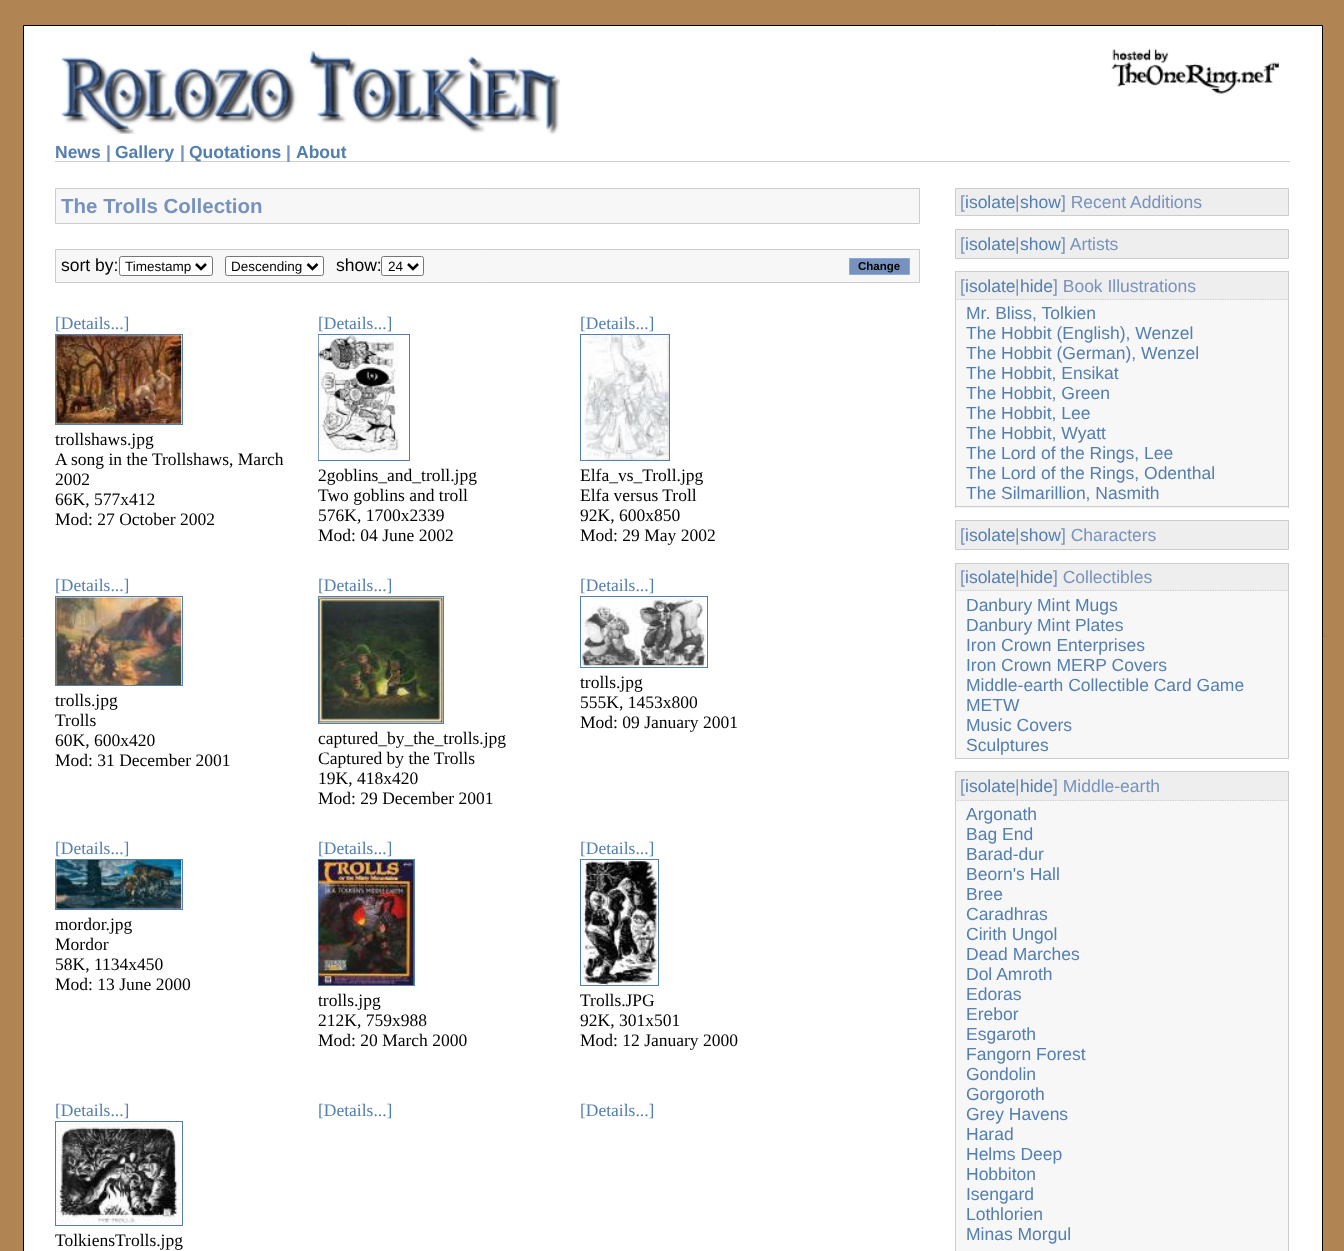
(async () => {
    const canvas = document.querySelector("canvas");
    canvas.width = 1344;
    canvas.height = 1251;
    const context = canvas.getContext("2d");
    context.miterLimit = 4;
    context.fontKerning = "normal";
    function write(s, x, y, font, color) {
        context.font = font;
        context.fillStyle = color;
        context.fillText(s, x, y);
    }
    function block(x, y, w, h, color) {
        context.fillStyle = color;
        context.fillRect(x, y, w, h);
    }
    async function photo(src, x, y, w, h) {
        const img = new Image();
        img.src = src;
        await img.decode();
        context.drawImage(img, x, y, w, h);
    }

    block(0, 0, 1344, 1251, "rgb(176, 133, 83)");
    context.fillStyle = "rgb(255, 255, 255)";
    context.beginPath();
    context.rect(23.5, 25.5, 1299, 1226);
    context.fill();
    context.strokeStyle = "rgb(0, 0, 0)";
    context.stroke();
    await photo("media/1.png", 61, 50, 500, 84);
    await photo("media/2.png", 1111, 48, 168, 46);
    block(55, 161, 1235, 1, "rgb(204, 204, 204)");
    write("News", 55, 158, "bold 17.5px Liberation Sans", "rgb(83, 126, 176)");
    write("|", 106, 158, "bold 17.5px Liberation Sans", "rgb(119, 146, 188)");
    write("Gallery", 115, 158, "bold 17.5px Liberation Sans", "rgb(83, 126, 176)");
    write("|", 180, 158, "bold 17.5px Liberation Sans", "rgb(119, 146, 188)");
    write("Quotations", 189, 158, "bold 17.5px Liberation Sans", "rgb(83, 126, 176)");
    write("|", 286, 158, "bold 17.5px Liberation Sans", "rgb(119, 146, 188)");
    write("About", 296, 158, "bold 17.5px Liberation Sans", "rgb(83, 126, 176)");
    context.fillStyle = "rgb(247, 247, 247)";
    context.beginPath();
    context.rect(55.5, 188.5, 864, 35);
    context.fill();
    context.strokeStyle = "rgb(204, 204, 204)";
    context.stroke();
    write("The Trolls Collection", 61, 213, "bold 20.5px Liberation Sans", "rgb(119, 146, 188)");
    context.fillStyle = "rgb(247, 247, 247)";
    context.beginPath();
    context.rect(55.5, 249.5, 864, 33);
    context.fill();
    context.stroke();
    write("sort by:", 61, 271, "17.5px Liberation Sans", "rgb(0, 0, 0)");
    context.fillStyle = "rgb(255, 255, 255)";
    context.beginPath();
    context.roundRect(119.5, 256.5, 93, 19, 2);
    context.fill();
    context.strokeStyle = "rgb(118, 118, 118)";
    context.stroke();
    context.beginPath();
    context.moveTo(196, 264);
    context.lineTo(201, 269);
    context.lineTo(206, 264);
    context.strokeStyle = "rgb(0, 0, 0)";
    context.lineWidth = 2.5;
    context.stroke();
    write("Timestamp", 125, 271, "13.5px Liberation Sans", "rgb(0, 0, 0)");
    context.fillStyle = "rgb(255, 255, 255)";
    context.beginPath();
    context.roundRect(225.5, 256.5, 98, 19, 2);
    context.fill();
    context.strokeStyle = "rgb(118, 118, 118)";
    context.lineWidth = 1;
    context.stroke();
    context.beginPath();
    context.moveTo(307.5, 264);
    context.lineTo(312.5, 269);
    context.lineTo(317.5, 264);
    context.strokeStyle = "rgb(0, 0, 0)";
    context.lineWidth = 2.5;
    context.stroke();
    write("Descending", 231, 271, "13.5px Liberation Sans", "rgb(0, 0, 0)");
    write("show:", 336, 271, "17.5px Liberation Sans", "rgb(0, 0, 0)");
    context.fillStyle = "rgb(255, 255, 255)";
    context.beginPath();
    context.roundRect(381.5, 256.5, 42, 19, 2);
    context.fill();
    context.strokeStyle = "rgb(118, 118, 118)";
    context.lineWidth = 1;
    context.stroke();
    context.beginPath();
    context.moveTo(408, 264);
    context.lineTo(413, 269);
    context.lineTo(418, 264);
    context.strokeStyle = "rgb(0, 0, 0)";
    context.lineWidth = 2.5;
    context.stroke();
    write("24", 388, 271, "13.5px Liberation Sans", "rgb(0, 0, 0)");
    context.fillStyle = "rgb(119, 146, 188)";
    context.beginPath();
    context.rect(849.5, 258.5, 60, 16);
    context.fill();
    context.strokeStyle = "rgb(136, 170, 221)";
    context.lineWidth = 1;
    context.stroke();
    write("Change", 858, 270, "bold 11.5px Liberation Sans", "rgb(0, 0, 0)");
    write("[Details...]", 55, 329, "17.5px Liberation Serif", "rgb(83, 126, 176)");
    context.strokeStyle = "rgb(83, 126, 176)";
    context.strokeRect(55.5, 334.5, 127, 90);
    await photo("media/3.png", 56, 335, 126, 89);
    write("trollshaws.jpg", 55, 445, "17.5px Liberation Serif", "rgb(0, 0, 0)");
    write("A song in the Trollshaws, March", 55, 465, "17.5px Liberation Serif", "rgb(0, 0, 0)");
    write("2002", 55, 485, "17.5px Liberation Serif", "rgb(0, 0, 0)");
    write("66K, 577x412", 55, 505, "17.5px Liberation Serif", "rgb(0, 0, 0)");
    write("Mod: 27 October 2002", 55, 525, "17.5px Liberation Serif", "rgb(0, 0, 0)");
    write("[Details...]", 318, 329, "17.5px Liberation Serif", "rgb(83, 126, 176)");
    context.strokeRect(318.5, 334.5, 91, 126);
    await photo("media/4.png", 318, 335, 81, 125);
    write("2goblins_and_troll.jpg", 318, 481, "17.5px Liberation Serif", "rgb(0, 0, 0)");
    context.save();
    context.beginPath();
    context.rect(318, 314, 262, 250);
    context.clip();
    write("Two goblins and troll", 318, 501, "17.5px Liberation Serif", "rgb(0, 0, 0)");
    context.restore();
    write("576K, 1700x2339", 318, 521, "17.5px Liberation Serif", "rgb(0, 0, 0)");
    write("Mod: 04 June 2002", 318, 541, "17.5px Liberation Serif", "rgb(0, 0, 0)");
    write("[Details...]", 580, 329, "17.5px Liberation Serif", "rgb(83, 126, 176)");
    context.strokeRect(580.5, 334.5, 89, 126);
    await photo("media/5.png", 581, 335, 88, 125);
    write("Elfa_vs_Troll.jpg", 580, 481, "17.5px Liberation Serif", "rgb(0, 0, 0)");
    write("Elfa versus Troll", 580, 501, "17.5px Liberation Serif", "rgb(0, 0, 0)");
    write("92K, 600x850", 580, 521, "17.5px Liberation Serif", "rgb(0, 0, 0)");
    write("Mod: 29 May 2002", 580, 541, "17.5px Liberation Serif", "rgb(0, 0, 0)");
    write("[Details...]", 55, 591, "17.5px Liberation Serif", "rgb(83, 126, 176)");
    context.strokeRect(55.5, 596.5, 127, 89);
    await photo("media/6.png", 56, 597, 126, 88);
    write("trolls.jpg", 55, 706, "17.5px Liberation Serif", "rgb(0, 0, 0)");
    write("Trolls", 55, 726, "17.5px Liberation Serif", "rgb(0, 0, 0)");
    write("60K, 600x420", 55, 746, "17.5px Liberation Serif", "rgb(0, 0, 0)");
    write("Mod: 31 December 2001", 55, 766, "17.5px Liberation Serif", "rgb(0, 0, 0)");
    write("[Details...]", 318, 591, "17.5px Liberation Serif", "rgb(83, 126, 176)");
    context.strokeRect(318.5, 596.5, 125, 127);
    await photo("media/7.png", 318, 597, 125, 126);
    write("captured_by_the_trolls.jpg", 318, 744, "17.5px Liberation Serif", "rgb(0, 0, 0)");
    write("Captured by the Trolls", 318, 764, "17.5px Liberation Serif", "rgb(0, 0, 0)");
    write("19K, 418x420", 318, 784, "17.5px Liberation Serif", "rgb(0, 0, 0)");
    write("Mod: 29 December 2001", 318, 804, "17.5px Liberation Serif", "rgb(0, 0, 0)");
    write("[Details...]", 580, 591, "17.5px Liberation Serif", "rgb(83, 126, 176)");
    context.strokeRect(580.5, 596.5, 127, 71);
    await photo("media/8.png", 581, 597, 125, 70);
    write("trolls.jpg", 580, 688, "17.5px Liberation Serif", "rgb(0, 0, 0)");
    write("555K, 1453x800", 580, 708, "17.5px Liberation Serif", "rgb(0, 0, 0)");
    write("Mod: 09 January 2001", 580, 728, "17.5px Liberation Serif", "rgb(0, 0, 0)");
    write("[Details...]", 55, 854, "17.5px Liberation Serif", "rgb(83, 126, 176)");
    context.strokeRect(55.5, 859.5, 127, 50);
    await photo("media/9.png", 56, 860, 126, 49);
    write("mordor.jpg", 55, 930, "17.5px Liberation Serif", "rgb(0, 0, 0)");
    write("Mordor", 55, 950, "17.5px Liberation Serif", "rgb(0, 0, 0)");
    write("58K, 1134x450", 55, 970, "17.5px Liberation Serif", "rgb(0, 0, 0)");
    write("Mod: 13 June 2000", 55, 990, "17.5px Liberation Serif", "rgb(0, 0, 0)");
    write("[Details...]", 318, 854, "17.5px Liberation Serif", "rgb(83, 126, 176)");
    context.strokeRect(318.5, 859.5, 96, 126);
    await photo("media/10.png", 318, 860, 96, 125);
    write("trolls.jpg", 318, 1006, "17.5px Liberation Serif", "rgb(0, 0, 0)");
    write("212K, 759x988", 318, 1026, "17.5px Liberation Serif", "rgb(0, 0, 0)");
    write("Mod: 20 March 2000", 318, 1046, "17.5px Liberation Serif", "rgb(0, 0, 0)");
    write("[Details...]", 580, 854, "17.5px Liberation Serif", "rgb(83, 126, 176)");
    context.strokeRect(580.5, 859.5, 78, 126);
    await photo("media/11.png", 581, 860, 77, 125);
    write("Trolls.JPG", 580, 1006, "17.5px Liberation Serif", "rgb(0, 0, 0)");
    write("92K, 301x501", 580, 1026, "17.5px Liberation Serif", "rgb(0, 0, 0)");
    write("Mod: 12 January 2000", 580, 1046, "17.5px Liberation Serif", "rgb(0, 0, 0)");
    write("[Details...]", 55, 1116, "17.5px Liberation Serif", "rgb(83, 126, 176)");
    context.strokeRect(55.5, 1121.5, 127, 104);
    await photo("media/12.png", 56, 1122, 125, 102);
    write("TolkiensTrolls.jpg", 55, 1246, "17.5px Liberation Serif", "rgb(0, 0, 0)");
    write("[Details...]", 318, 1116, "17.5px Liberation Serif", "rgb(83, 126, 176)");
    write("[Details...]", 580, 1116, "17.5px Liberation Serif", "rgb(83, 126, 176)");
    context.fillStyle = "rgb(238, 238, 238)";
    context.beginPath();
    context.rect(955.5, 188.5, 333, 27);
    context.fill();
    context.strokeStyle = "rgb(204, 204, 204)";
    context.stroke();
    write("[", 960, 208, "17.5px Liberation Sans", "rgb(119, 146, 188)");
    write("isolate", 965, 208, "17.5px Liberation Sans", "rgb(83, 126, 176)");
    write("|", 1015, 208, "17.5px Liberation Sans", "rgb(119, 146, 188)");
    write("show", 1020, 208, "17.5px Liberation Sans", "rgb(83, 126, 176)");
    write("] Recent Additions", 1061, 208, "17.5px Liberation Sans", "rgb(119, 146, 188)");
    context.fillStyle = "rgb(238, 238, 238)";
    context.beginPath();
    context.rect(955.5, 229.5, 333, 29);
    context.fill();
    context.stroke();
    write("[", 960, 250, "17.5px Liberation Sans", "rgb(119, 146, 188)");
    write("isolate", 965, 250, "17.5px Liberation Sans", "rgb(83, 126, 176)");
    write("|", 1015, 250, "17.5px Liberation Sans", "rgb(119, 146, 188)");
    write("show", 1020, 250, "17.5px Liberation Sans", "rgb(83, 126, 176)");
    write("] Artists", 1061, 250, "17.5px Liberation Sans", "rgb(119, 146, 188)");
    block(956, 272, 332, 28, "rgb(238, 238, 238)");
    block(955, 271, 334, 1, "rgb(204, 204, 204)");
    block(1288, 271, 1, 29, "rgb(204, 204, 204)");
    context.beginPath();
    context.moveTo(955, 299.5);
    context.lineTo(1289, 299.5);
    context.lineWidth = 1.2;
    context.setLineDash([1.25, 1.25]);
    context.stroke();
    block(955, 271, 1, 29, "rgb(204, 204, 204)");
    write("[", 960, 292, "17.5px Liberation Sans", "rgb(119, 146, 188)");
    write("isolate", 965, 292, "17.5px Liberation Sans", "rgb(83, 126, 176)");
    write("|", 1015, 292, "17.5px Liberation Sans", "rgb(119, 146, 188)");
    write("hide", 1020, 292, "17.5px Liberation Sans", "rgb(83, 126, 176)");
    write("] Book Illustrations", 1053, 292, "17.5px Liberation Sans", "rgb(119, 146, 188)");
    block(956, 300, 332, 208, "rgb(247, 247, 247)");
    block(1288, 300, 1, 208, "rgb(204, 204, 204)");
    block(955, 506, 334, 1, "rgb(204, 204, 204)");
    block(955, 300, 1, 208, "rgb(204, 204, 204)");
    write("Mr. Bliss, Tolkien", 966, 319, "17.5px Liberation Sans", "rgb(83, 126, 176)");
    write("The Hobbit (English), Wenzel", 966, 339, "17.5px Liberation Sans", "rgb(83, 126, 176)");
    write("The Hobbit (German), Wenzel", 966, 359, "17.5px Liberation Sans", "rgb(83, 126, 176)");
    write("The Hobbit, Ensikat", 966, 379, "17.5px Liberation Sans", "rgb(83, 126, 176)");
    write("The Hobbit, Green", 966, 399, "17.5px Liberation Sans", "rgb(83, 126, 176)");
    write("The Hobbit, Lee", 966, 419, "17.5px Liberation Sans", "rgb(83, 126, 176)");
    write("The Hobbit, Wyatt", 966, 439, "17.5px Liberation Sans", "rgb(83, 126, 176)");
    write("The Lord of the Rings, Lee", 966, 459, "17.5px Liberation Sans", "rgb(83, 126, 176)");
    write("The Lord of the Rings, Odenthal", 966, 479, "17.5px Liberation Sans", "rgb(83, 126, 176)");
    write("The Silmarillion, Nasmith", 966, 499, "17.5px Liberation Sans", "rgb(83, 126, 176)");
    context.fillStyle = "rgb(238, 238, 238)";
    context.beginPath();
    context.rect(955.5, 520.5, 333, 29);
    context.fill();
    context.lineWidth = 1;
    context.setLineDash([]);
    context.stroke();
    write("[", 960, 541, "17.5px Liberation Sans", "rgb(119, 146, 188)");
    write("isolate", 965, 541, "17.5px Liberation Sans", "rgb(83, 126, 176)");
    write("|", 1015, 541, "17.5px Liberation Sans", "rgb(119, 146, 188)");
    write("show", 1020, 541, "17.5px Liberation Sans", "rgb(83, 126, 176)");
    write("] Characters", 1061, 541, "17.5px Liberation Sans", "rgb(119, 146, 188)");
    block(956, 564, 332, 27, "rgb(238, 238, 238)");
    block(955, 563, 334, 1, "rgb(204, 204, 204)");
    block(1288, 563, 1, 28, "rgb(204, 204, 204)");
    context.beginPath();
    context.moveTo(955, 590.5);
    context.lineTo(1289, 590.5);
    context.lineWidth = 1.2;
    context.setLineDash([1.25, 1.25]);
    context.stroke();
    block(955, 563, 1, 28, "rgb(204, 204, 204)");
    write("[", 960, 583, "17.5px Liberation Sans", "rgb(119, 146, 188)");
    write("isolate", 965, 583, "17.5px Liberation Sans", "rgb(83, 126, 176)");
    write("|", 1015, 583, "17.5px Liberation Sans", "rgb(119, 146, 188)");
    write("hide", 1020, 583, "17.5px Liberation Sans", "rgb(83, 126, 176)");
    write("] Collectibles", 1053, 583, "17.5px Liberation Sans", "rgb(119, 146, 188)");
    block(956, 591, 332, 167, "rgb(247, 247, 247)");
    block(1288, 591, 1, 168, "rgb(204, 204, 204)");
    block(955, 758, 334, 1, "rgb(204, 204, 204)");
    block(955, 591, 1, 168, "rgb(204, 204, 204)");
    write("Danbury Mint Mugs", 966, 611, "17.5px Liberation Sans", "rgb(83, 126, 176)");
    write("Danbury Mint Plates", 966, 631, "17.5px Liberation Sans", "rgb(83, 126, 176)");
    write("Iron Crown Enterprises", 966, 651, "17.5px Liberation Sans", "rgb(83, 126, 176)");
    write("Iron Crown MERP Covers", 966, 671, "17.5px Liberation Sans", "rgb(83, 126, 176)");
    write("Middle-earth Collectible Card Game", 966, 691, "17.5px Liberation Sans", "rgb(83, 126, 176)");
    write("METW", 966, 711, "17.5px Liberation Sans", "rgb(83, 126, 176)");
    write("Music Covers", 966, 731, "17.5px Liberation Sans", "rgb(83, 126, 176)");
    write("Sculptures", 966, 751, "17.5px Liberation Sans", "rgb(83, 126, 176)");
    block(956, 772, 332, 29, "rgb(238, 238, 238)");
    block(955, 771, 334, 1, "rgb(204, 204, 204)");
    block(1288, 771, 1, 30, "rgb(204, 204, 204)");
    context.beginPath();
    context.moveTo(955, 800.5);
    context.lineTo(1289, 800.5);
    context.stroke();
    block(955, 771, 1, 480, "rgb(204, 204, 204)");
    write("[", 960, 792, "17.5px Liberation Sans", "rgb(119, 146, 188)");
    write("isolate", 965, 792, "17.5px Liberation Sans", "rgb(83, 126, 176)");
    write("|", 1015, 792, "17.5px Liberation Sans", "rgb(119, 146, 188)");
    write("hide", 1020, 792, "17.5px Liberation Sans", "rgb(83, 126, 176)");
    write("] Middle-earth", 1053, 792, "17.5px Liberation Sans", "rgb(119, 146, 188)");
    block(956, 801, 332, 450, "rgb(247, 247, 247)");
    block(1288, 801, 1, 450, "rgb(204, 204, 204)");
    write("Argonath", 966, 820, "17.5px Liberation Sans", "rgb(83, 126, 176)");
    write("Bag End", 966, 840, "17.5px Liberation Sans", "rgb(83, 126, 176)");
    write("Barad-dur", 966, 860, "17.5px Liberation Sans", "rgb(83, 126, 176)");
    write("Beorn's Hall", 966, 880, "17.5px Liberation Sans", "rgb(83, 126, 176)");
    write("Bree", 966, 900, "17.5px Liberation Sans", "rgb(83, 126, 176)");
    write("Caradhras", 966, 920, "17.5px Liberation Sans", "rgb(83, 126, 176)");
    write("Cirith Ungol", 966, 940, "17.5px Liberation Sans", "rgb(83, 126, 176)");
    write("Dead Marches", 966, 960, "17.5px Liberation Sans", "rgb(83, 126, 176)");
    write("Dol Amroth", 966, 980, "17.5px Liberation Sans", "rgb(83, 126, 176)");
    write("Edoras", 966, 1000, "17.5px Liberation Sans", "rgb(83, 126, 176)");
    write("Erebor", 966, 1020, "17.5px Liberation Sans", "rgb(83, 126, 176)");
    write("Esgaroth", 966, 1040, "17.5px Liberation Sans", "rgb(83, 126, 176)");
    write("Fangorn Forest", 966, 1060, "17.5px Liberation Sans", "rgb(83, 126, 176)");
    write("Gondolin", 966, 1080, "17.5px Liberation Sans", "rgb(83, 126, 176)");
    write("Gorgoroth", 966, 1100, "17.5px Liberation Sans", "rgb(83, 126, 176)");
    write("Grey Havens", 966, 1120, "17.5px Liberation Sans", "rgb(83, 126, 176)");
    write("Harad", 966, 1140, "17.5px Liberation Sans", "rgb(83, 126, 176)");
    write("Helms Deep", 966, 1160, "17.5px Liberation Sans", "rgb(83, 126, 176)");
    write("Hobbiton", 966, 1180, "17.5px Liberation Sans", "rgb(83, 126, 176)");
    write("Isengard", 966, 1200, "17.5px Liberation Sans", "rgb(83, 126, 176)");
    write("Lothlorien", 966, 1220, "17.5px Liberation Sans", "rgb(83, 126, 176)");
    write("Minas Morgul", 966, 1240, "17.5px Liberation Sans", "rgb(83, 126, 176)");
})();
